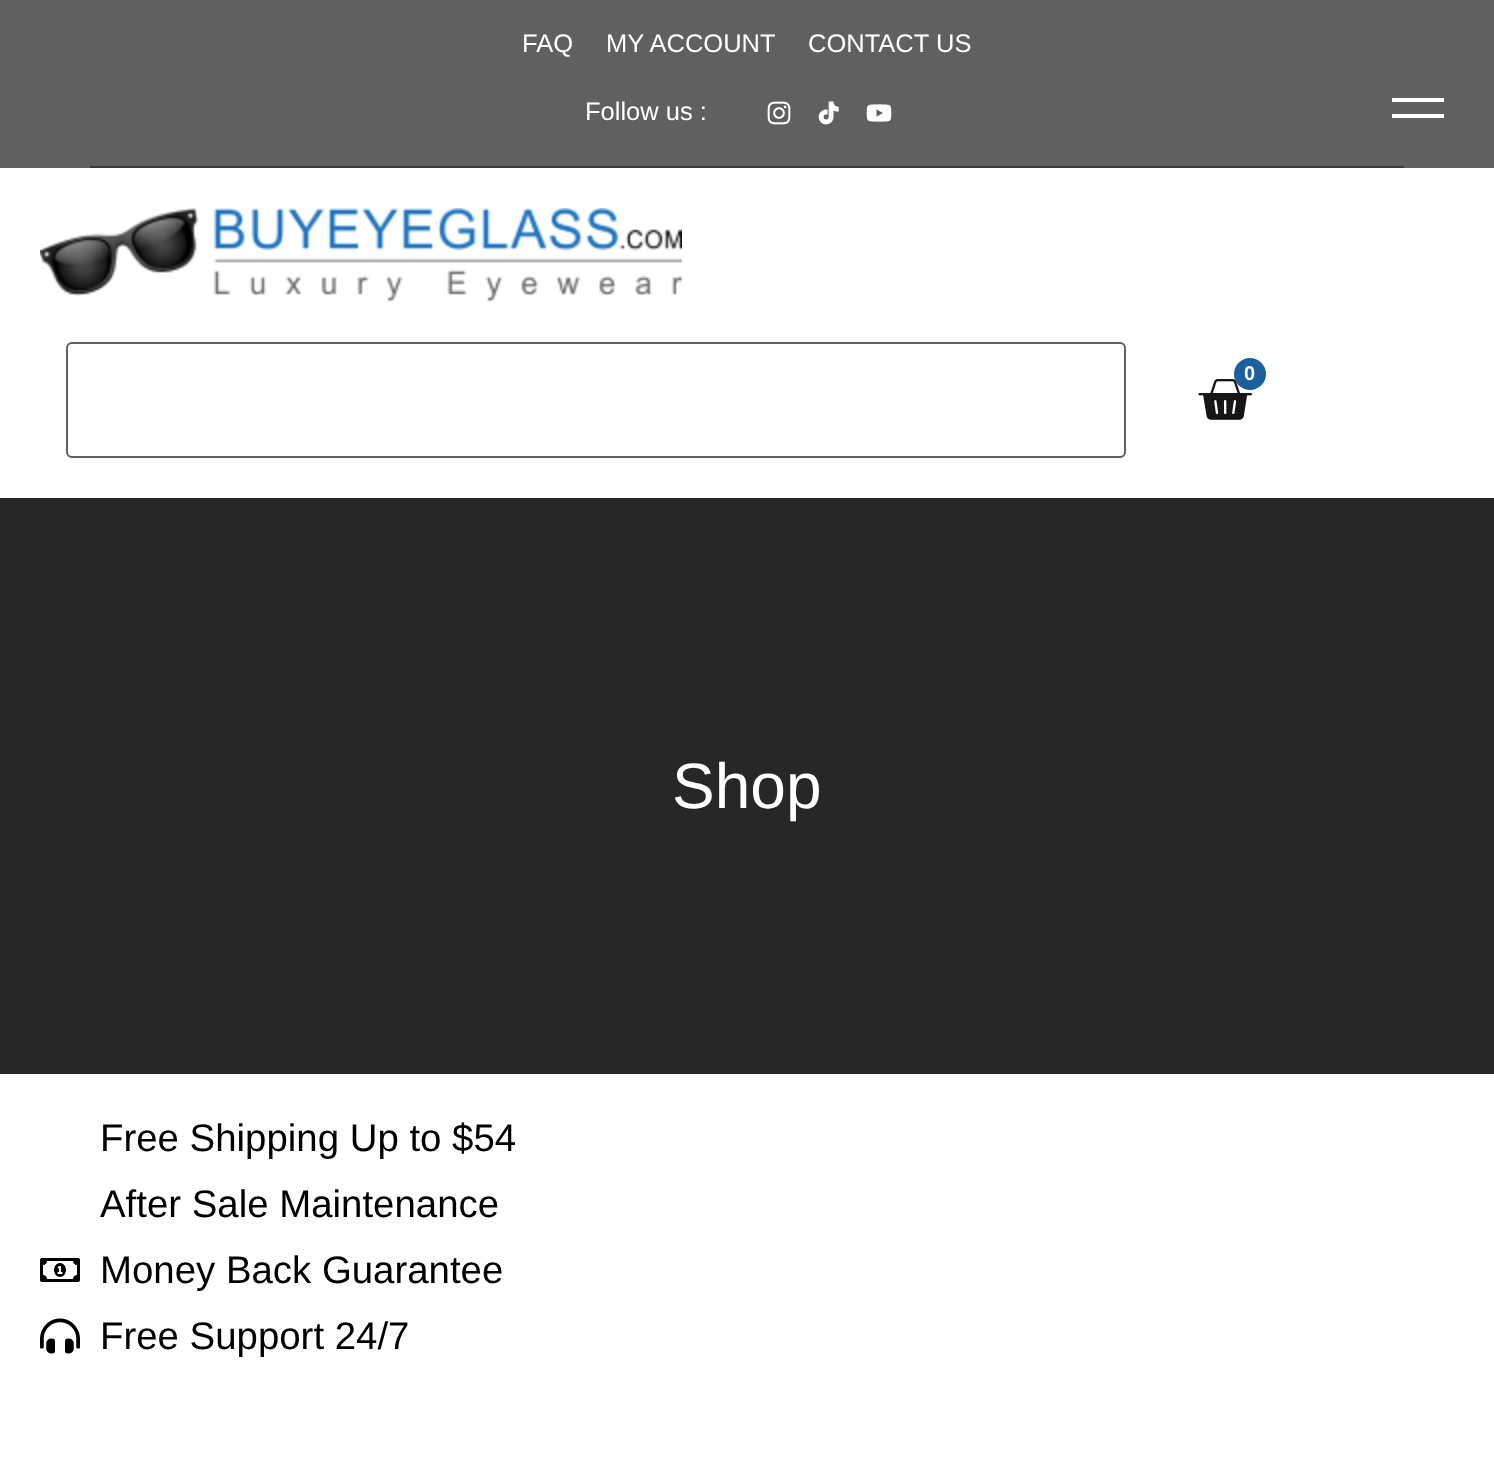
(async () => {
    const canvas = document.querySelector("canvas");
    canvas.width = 1494;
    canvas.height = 1473;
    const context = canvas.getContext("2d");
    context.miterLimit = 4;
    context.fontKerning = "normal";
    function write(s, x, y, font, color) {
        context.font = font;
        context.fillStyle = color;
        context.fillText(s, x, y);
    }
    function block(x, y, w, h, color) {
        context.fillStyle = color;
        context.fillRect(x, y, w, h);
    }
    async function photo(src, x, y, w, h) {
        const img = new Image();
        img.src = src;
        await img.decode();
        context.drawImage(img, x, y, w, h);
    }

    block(0, 0, 1494, 1473, "rgb(255, 255, 255)");
    block(0, 0, 1494, 168, "rgb(97, 96, 96)");
    write("FAQ", 522, 52, "25.5px Liberation Sans", "rgb(255, 255, 255)");
    write("MY ACCOUNT", 606, 52, "25.5px Liberation Sans", "rgb(255, 255, 255)");
    write("CONTACT US", 808, 52, "25.5px Liberation Sans", "rgb(255, 255, 255)");
    write("Follow us :", 585, 120, "25.5px Liberation Sans", "rgb(255, 255, 255)");
    await photo("media/1.png", 767, 101, 24, 24);
    await photo("media/2.png", 818, 101, 21, 24);
    await photo("media/3.png", 866, 104, 26, 18);
    block(90, 166, 1314, 2, "rgb(59, 57, 57)");
    block(1392, 98, 52, 4, "rgb(255, 255, 255)");
    block(1392, 114, 52, 4, "rgb(255, 255, 255)");
    await photo("media/4.png", 40, 208, 642, 94);
    context.beginPath();
    context.roundRect(67, 343, 1058, 114, 5);
    context.strokeStyle = "rgb(97, 96, 96)";
    context.lineWidth = 2;
    context.stroke();
    await photo("media/5.png", 1198, 379, 54, 41);
    context.fillStyle = "rgb(27, 96, 157)";
    context.beginPath();
    context.arc(1250, 374, 16, 0, Math.PI * 2);
    context.fill();
    write("0", 1244, 380, "bold 20px Liberation Sans", "rgb(255, 255, 255)");
    block(0, 498, 1494, 576, "rgb(39, 39, 39)");
    write("Shop", 672, 808, "64px Liberation Sans", "rgb(255, 255, 255)");
    write("Free Shipping Up to $54", 100, 1151, "38.4px Liberation Sans", "rgb(0, 0, 0)");
    write("After Sale Maintenance", 100, 1217, "38.4px Liberation Sans", "rgb(0, 0, 0)");
    await photo("media/6.png", 40, 1258, 40, 24);
    write("Money Back Guarantee", 100, 1283, "38.4px Liberation Sans", "rgb(0, 0, 0)");
    await photo("media/7.png", 40, 1318, 40, 36);
    write("Free Support 24/7", 100, 1349, "38.4px Liberation Sans", "rgb(0, 0, 0)");
})();
